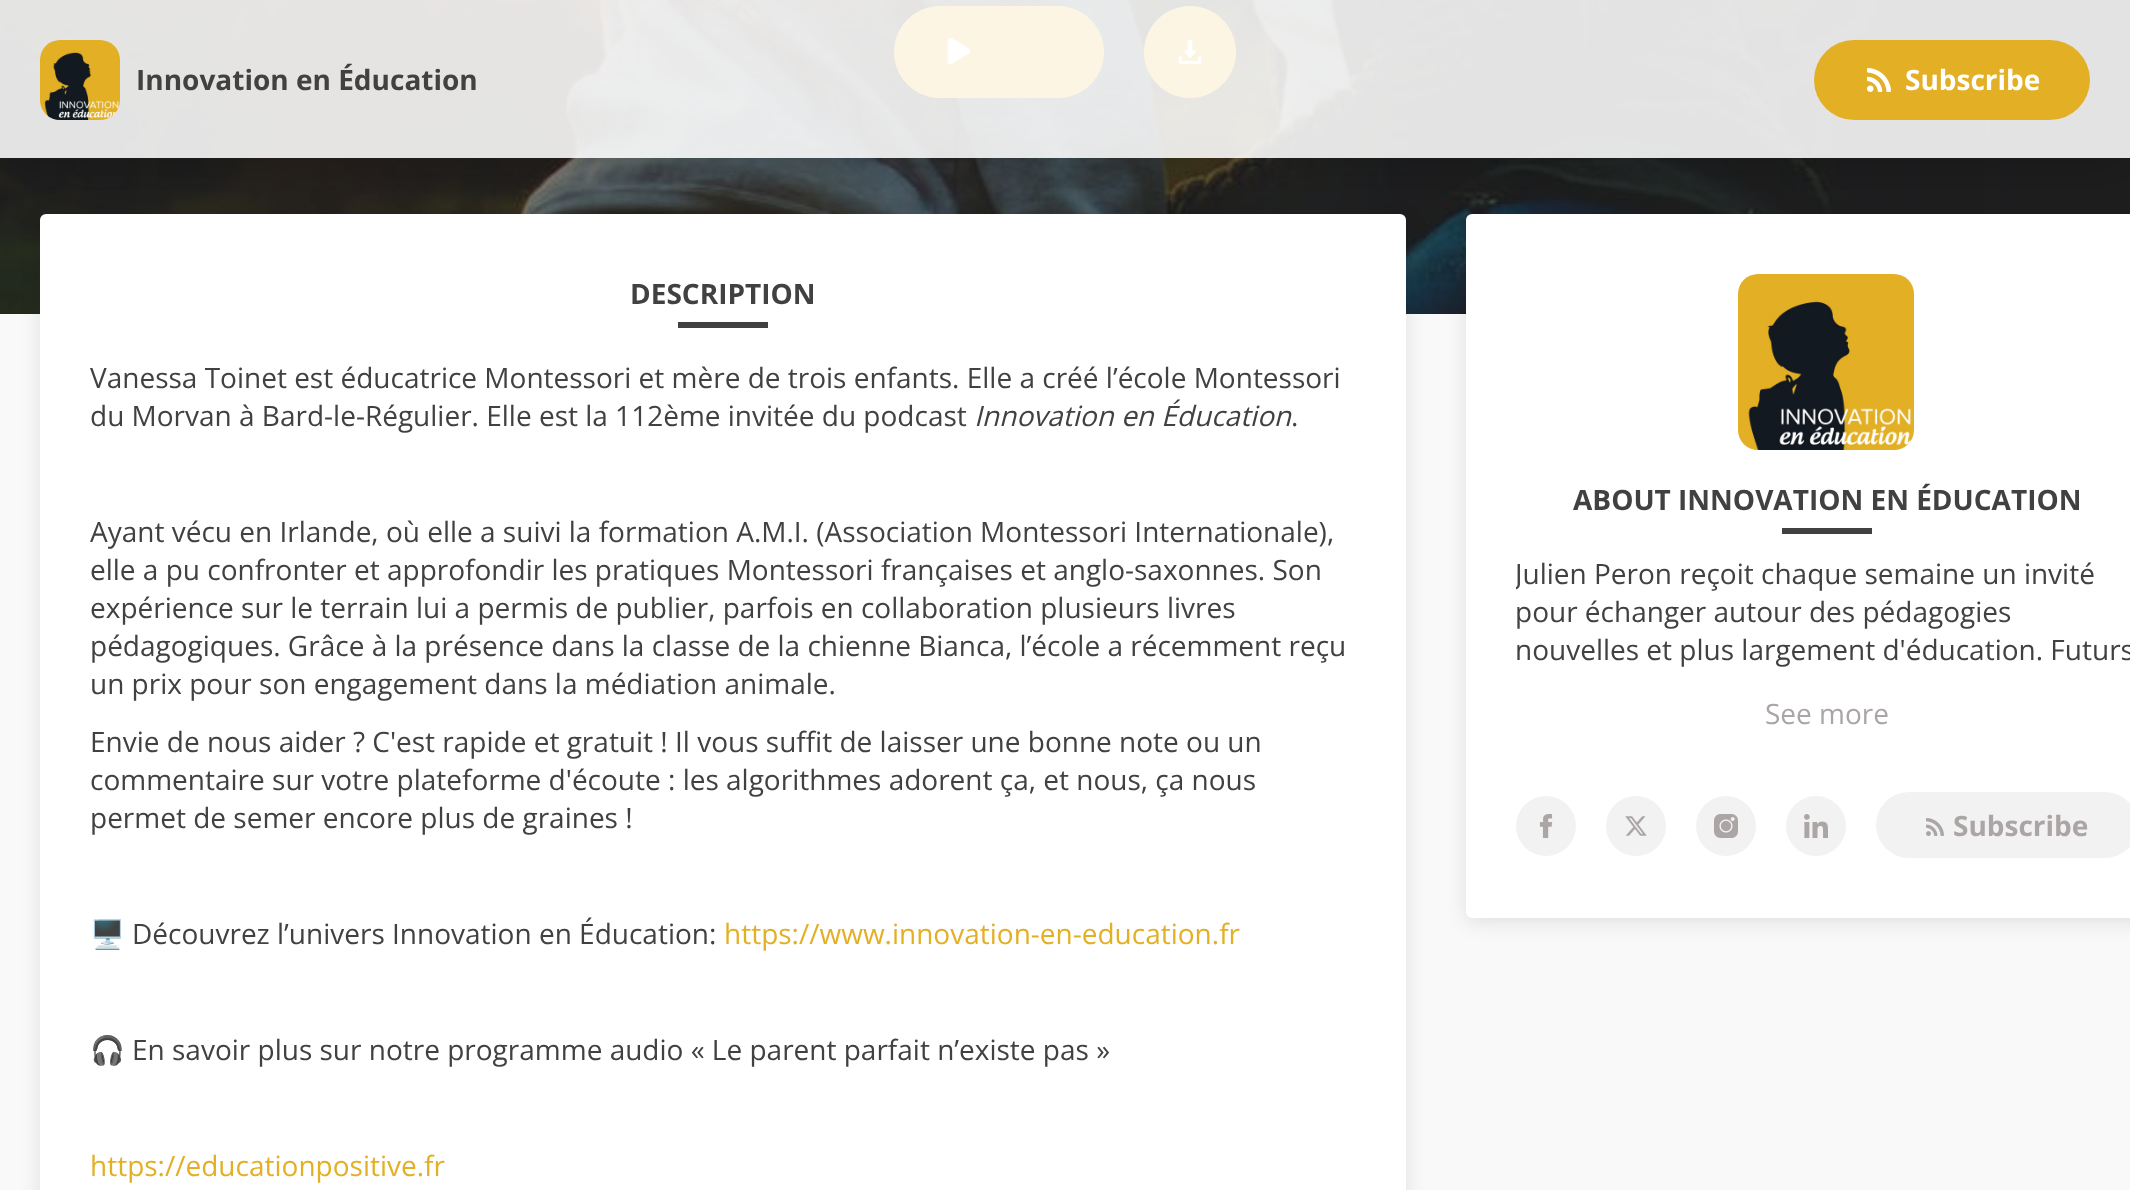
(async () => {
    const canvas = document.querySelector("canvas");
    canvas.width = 2130;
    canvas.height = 1190;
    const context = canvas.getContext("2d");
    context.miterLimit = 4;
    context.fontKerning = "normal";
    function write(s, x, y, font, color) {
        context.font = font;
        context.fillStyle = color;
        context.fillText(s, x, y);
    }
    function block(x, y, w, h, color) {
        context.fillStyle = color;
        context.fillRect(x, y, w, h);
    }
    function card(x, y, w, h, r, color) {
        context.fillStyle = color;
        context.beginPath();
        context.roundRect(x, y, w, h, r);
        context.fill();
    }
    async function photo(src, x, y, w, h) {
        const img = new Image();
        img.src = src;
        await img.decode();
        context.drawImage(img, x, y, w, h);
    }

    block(0, 0, 2130, 1190, "rgb(255, 255, 255)");
    await photo("media/1.png", 0, 0, 2130, 314);
    card(894, 6, 210, 92, 46, "rgb(227, 175, 36)");
    await photo("media/2.png", 947, 37, 24, 28);
    context.beginPath();
    context.arc(1190, 52, 46, 0, Math.PI * 2);
    context.fill();
    await photo("media/3.png", 1178, 40, 24, 24);
    block(0, 314, 2130, 876, "rgb(249, 249, 249)");
    context.fillStyle = "rgba(0, 0, 0, 0.1)";
    context.filter = "blur(10px)";
    context.beginPath();
    context.roundRect(40, 218, 1366, 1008, 6);
    context.fill();
    context.filter = "none";
    card(40, 214, 1366, 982, 6, "rgb(255, 255, 255)");
    context.fillStyle = "rgba(0, 0, 0, 0.1)";
    context.filter = "blur(10px)";
    context.beginPath();
    context.roundRect(1466, 218, 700, 704, 6);
    context.fill();
    context.filter = "none";
    card(1466, 214, 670, 704, 6, "rgb(255, 255, 255)");
    context.save();
    context.beginPath();
    context.rect(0, 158, 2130, 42);
    context.clip();
    context.fillStyle = "rgba(0, 0, 0, 0.25)";
    context.filter = "blur(30px)";
    context.beginPath();
    context.rect(0, 0, 2130, 158);
    context.fill();
    context.filter = "none";
    context.restore();
    block(0, 0, 2130, 158, "rgba(255, 255, 255, 0.88)");
    await photo("media/4.png", 40, 40, 80, 80);
    write("Innovation en Éducation", 136, 90, "bold 28px Open Sans", "rgb(65, 65, 65)");
    card(1814, 40, 276, 80, 40, "rgb(227, 175, 36)");
    await photo("media/5.png", 1867, 68, 24, 24);
    write("Subscribe", 1905, 90, "bold 28px Open Sans", "rgb(255, 255, 255)");
    write("DESCRIPTION", 630, 304, "bold 28px Open Sans", "rgb(65, 65, 65)");
    block(678, 322, 90, 6, "rgb(65, 65, 65)");
    write("Vanessa Toinet est éducatrice Montessori et mère de trois enfants. Elle a créé l’école Montessori", 90, 388, "28px Open Sans", "rgb(65, 65, 65)");
    write("du Morvan à Bard-le-Régulier. Elle est la 112ème invitée du podcast", 90, 426, "28px Open Sans", "rgb(65, 65, 65)");
    write("Innovation en Éducation", 974, 426, "italic 28px Open Sans", "rgb(65, 65, 65)");
    write(".", 1291, 426, "28px Open Sans", "rgb(65, 65, 65)");
    write("Ayant vécu en Irlande, où elle a suivi la formation A.M.I. (Association Montessori Internationale),", 90, 542, "28px Open Sans", "rgb(65, 65, 65)");
    write("elle a pu confronter et approfondir les pratiques Montessori françaises et anglo-saxonnes. Son", 90, 580, "28px Open Sans", "rgb(65, 65, 65)");
    write("expérience sur le terrain lui a permis de publier, parfois en collaboration plusieurs livres", 90, 618, "28px Open Sans", "rgb(65, 65, 65)");
    write("pédagogiques. Grâce à la présence dans la classe de la chienne Bianca, l’école a récemment reçu", 90, 656, "28px Open Sans", "rgb(65, 65, 65)");
    write("un prix pour son engagement dans la médiation animale.", 90, 694, "28px Open Sans", "rgb(65, 65, 65)");
    write("Envie de nous aider ? C'est rapide et gratuit ! Il vous suffit de laisser une bonne note ou un", 90, 752, "28px Open Sans", "rgb(65, 65, 65)");
    write("commentaire sur votre plateforme d'écoute : les algorithmes adorent ça, et nous, ça nous", 90, 790, "28px Open Sans", "rgb(65, 65, 65)");
    write("permet de semer encore plus de graines !", 90, 828, "28px Open Sans", "rgb(65, 65, 65)");
    write("🖥️", 90, 944, "28px Noto Color Emoji", "rgb(65, 65, 65)");
    write("Découvrez l’univers Innovation en Éducation:", 132, 944, "28px Open Sans", "rgb(65, 65, 65)");
    write("https://www.innovation-en-education.fr", 724, 944, "28px Open Sans", "rgb(227, 175, 36)");
    write("🎧", 90, 1060, "28px Noto Color Emoji", "rgb(65, 65, 65)");
    write("En savoir plus sur notre programme audio « Le parent parfait n’existe pas »", 132, 1060, "28px Open Sans", "rgb(65, 65, 65)");
    write("https://educationpositive.fr", 90, 1176, "28px Open Sans", "rgb(227, 175, 36)");
    await photo("media/6.png", 1738, 274, 176, 176);
    write("ABOUT INNOVATION EN ÉDUCATION", 1573, 510, "bold 28px Open Sans", "rgb(65, 65, 65)");
    block(1782, 528, 90, 6, "rgb(65, 65, 65)");
    context.save();
    context.beginPath();
    context.rect(1516, 554, 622, 120);
    context.clip();
    write("Julien Peron reçoit chaque semaine un invité", 1515, 584, "28px Open Sans", "rgb(65, 65, 65)");
    context.restore();
    write("pour échanger autour des pédagogies", 1515, 622, "28px Open Sans", "rgb(65, 65, 65)");
    write("nouvelles et plus largement d'éducation. Futurs", 1515, 660, "28px Open Sans", "rgb(65, 65, 65)");
    write("See more", 1765, 724, "28px Open Sans", "rgb(172, 165, 165)");
    context.fillStyle = "rgb(242, 242, 242)";
    context.beginPath();
    context.arc(1546, 826, 30, 0, Math.PI * 2);
    context.fill();
    await photo("media/7.png", 1539, 814, 14, 24);
    context.beginPath();
    context.arc(1636, 826, 30, 0, Math.PI * 2);
    context.fill();
    await photo("media/8.png", 1625, 816, 22, 20);
    context.beginPath();
    context.arc(1726, 826, 30, 0, Math.PI * 2);
    context.fill();
    await photo("media/9.png", 1714, 814, 24, 24);
    context.beginPath();
    context.arc(1816, 826, 30, 0, Math.PI * 2);
    context.fill();
    await photo("media/10.png", 1804, 814, 24, 24);
    card(1876, 792, 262, 66, 33, "rgb(242, 242, 242)");
    await photo("media/11.png", 1926, 818, 18, 18);
    write("Subscribe", 1953, 836, "bold 28px Open Sans", "rgb(172, 165, 165)");
})();
